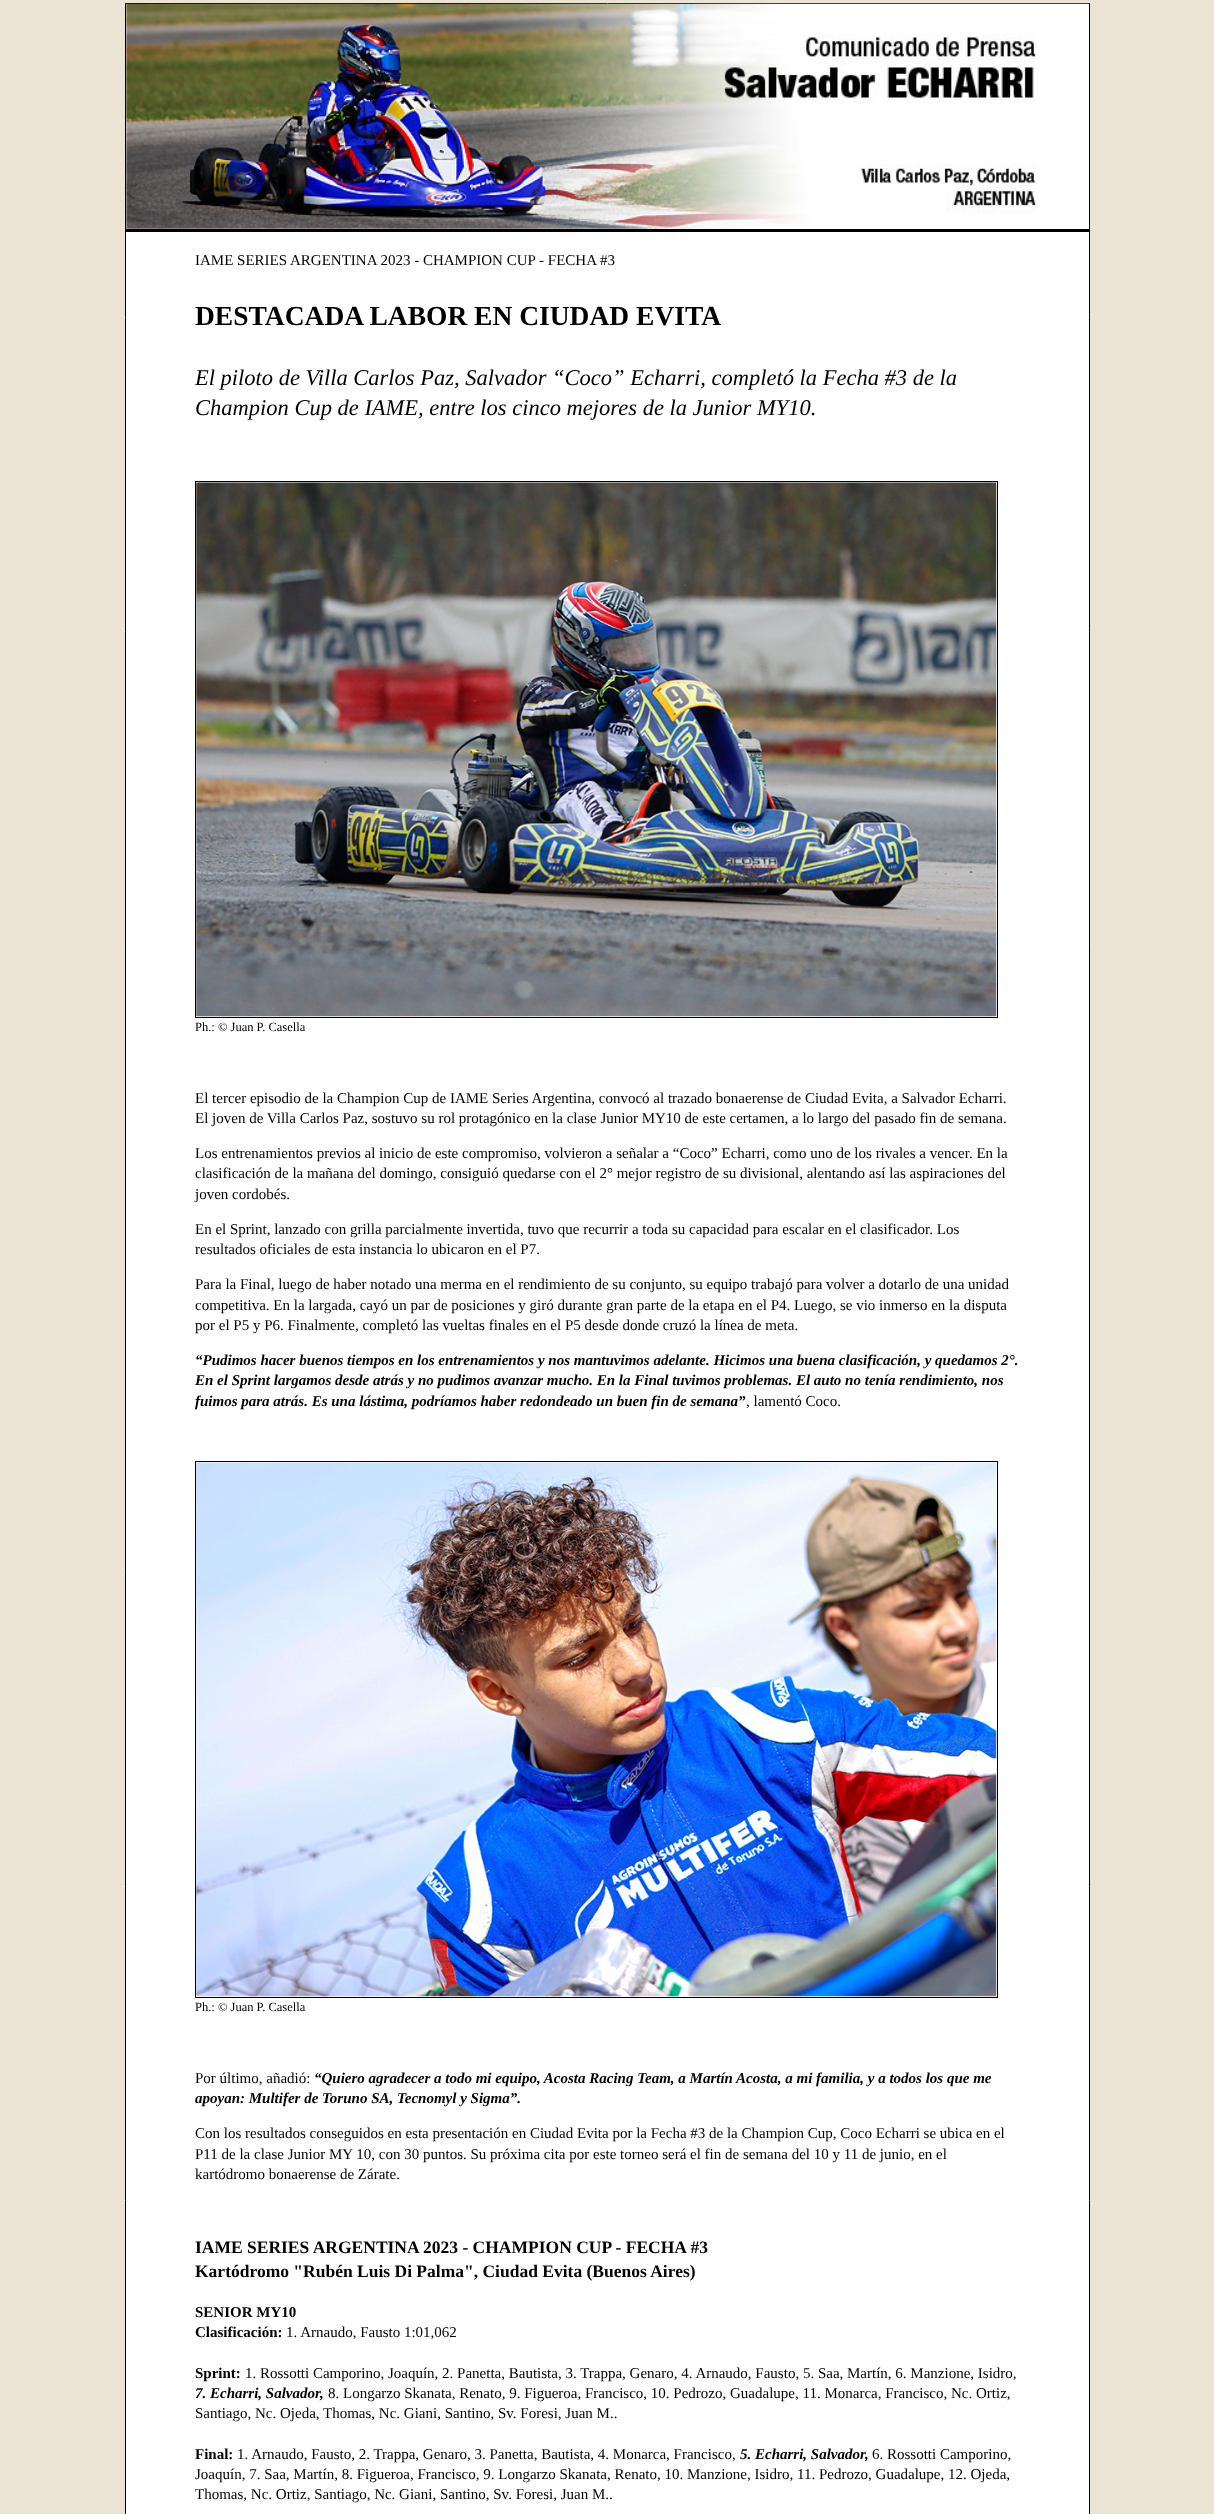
(async () => {
    const canvas = document.querySelector("canvas");
    canvas.width = 1214;
    canvas.height = 2514;
    const context = canvas.getContext("2d");
    context.miterLimit = 4;
    context.fontKerning = "normal";
    function write(s, x, y, font, color) {
        context.font = font;
        context.fillStyle = color;
        context.fillText(s, x, y);
    }
    function block(x, y, w, h, color) {
        context.fillStyle = color;
        context.fillRect(x, y, w, h);
    }
    async function photo(src, x, y, w, h) {
        const img = new Image();
        img.src = src;
        await img.decode();
        context.drawImage(img, x, y, w, h);
    }

    block(0, 0, 1214, 2514, "rgb(235, 228, 212)");
    context.fillStyle = "rgb(255, 255, 255)";
    context.beginPath();
    context.rect(125.5, 3.5, 964, 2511);
    context.fill();
    context.strokeStyle = "rgb(0, 0, 0)";
    context.stroke();
    block(126, 229, 963, 3, "rgb(0, 0, 0)");
    await photo("media/1.png", 126, 3, 963, 226);
    write("IAME SERIES ARGENTINA 2023 - CHAMPION CUP - FECHA #3", 195, 265, "15px Liberation Serif", "rgb(0, 0, 0)");
    write("DESTACADA LABOR EN CIUDAD EVITA", 195, 325, "bold 27.5px Liberation Serif", "rgb(0, 0, 0)");
    write("El piloto de Villa Carlos Paz, Salvador “Coco” Echarri, completó la Fecha #3 de la", 195, 385, "italic 22.5px Liberation Serif", "rgb(0, 0, 0)");
    write("Champion Cup de IAME, entre los cinco mejores de la Junior MY10.", 195, 415, "italic 22.5px Liberation Serif", "rgb(0, 0, 0)");
    context.strokeRect(195.5, 481.5, 802, 536);
    await photo("media/2.png", 196, 482, 801, 535);
    write("Ph.: © Juan P. Casella", 195, 1031, "12.5px Liberation Serif", "rgb(0, 0, 0)");
    write("El tercer episodio de la Champion Cup de IAME Series Argentina, convocó al trazado bonaerense de Ciudad Evita, a Salvador Echarri.", 195, 1103, "15px Liberation Serif", "rgb(0, 0, 0)");
    write("El joven de Villa Carlos Paz, sostuvo su rol protagónico en la clase Junior MY10 de este certamen, a lo largo del pasado fin de semana.", 195, 1123, "15px Liberation Serif", "rgb(0, 0, 0)");
    write("Los entrenamientos previos al inicio de este compromiso, volvieron a señalar a “Coco” Echarri, como uno de los rivales a vencer. En la", 195, 1158, "15px Liberation Serif", "rgb(0, 0, 0)");
    write("clasificación de la mañana del domingo, consiguió quedarse con el 2° mejor registro de su divisional, alentando así las aspiraciones del", 195, 1178, "15px Liberation Serif", "rgb(0, 0, 0)");
    write("joven cordobés.", 195, 1199, "15px Liberation Serif", "rgb(0, 0, 0)");
    write("En el Sprint, lanzado con grilla parcialmente invertida, tuvo que recurrir a toda su capacidad para escalar en el clasificador. Los", 195, 1234, "15px Liberation Serif", "rgb(0, 0, 0)");
    write("resultados oficiales de esta instancia lo ubicaron en el P7.", 195, 1254, "15px Liberation Serif", "rgb(0, 0, 0)");
    write("Para la Final, luego de haber notado una merma en el rendimiento de su conjunto, su equipo trabajó para volver a dotarlo de una unidad", 195, 1289, "15px Liberation Serif", "rgb(0, 0, 0)");
    write("competitiva. En la largada, cayó un par de posiciones y giró durante gran parte de la etapa en el P4. Luego, se vio inmerso en la disputa", 195, 1310, "15px Liberation Serif", "rgb(0, 0, 0)");
    write("por el P5 y P6. Finalmente, completó las vueltas finales en el P5 desde donde cruzó la línea de meta.", 195, 1330, "15px Liberation Serif", "rgb(0, 0, 0)");
    write("“Pudimos hacer buenos tiempos en los entrenamientos y nos mantuvimos adelante. Hicimos una buena clasificación, y quedamos 2°.", 195, 1365, "italic bold 15px Liberation Serif", "rgb(0, 0, 0)");
    write("En el Sprint largamos desde atrás y no pudimos avanzar mucho. En la Final tuvimos problemas. El auto no tenía rendimiento, nos", 195, 1385, "italic bold 15px Liberation Serif", "rgb(0, 0, 0)");
    write("fuimos para atrás. Es una lástima, podríamos haber redondeado un buen fin de semana”", 195, 1406, "italic bold 15px Liberation Serif", "rgb(0, 0, 0)");
    write(", lamentó Coco.", 746, 1406, "15px Liberation Serif", "rgb(0, 0, 0)");
    context.strokeRect(195.5, 1461.5, 802, 536);
    await photo("media/3.png", 196, 1462, 801, 535);
    write("Ph.: © Juan P. Casella", 195, 2011, "12.5px Liberation Serif", "rgb(0, 0, 0)");
    write("Por último, añadió:", 195, 2083, "15px Liberation Serif", "rgb(0, 0, 0)");
    write("“Quiero agradecer a todo mi equipo, Acosta Racing Team, a Martín Acosta, a mi familia, y a todos los que me", 314, 2083, "italic bold 15px Liberation Serif", "rgb(0, 0, 0)");
    write("apoyan: Multifer de Toruno SA, Tecnomyl y Sigma”.", 195, 2103, "italic bold 15px Liberation Serif", "rgb(0, 0, 0)");
    write("Con los resultados conseguidos en esta presentación en Ciudad Evita por la Fecha #3 de la Champion Cup, Coco Echarri se ubica en el", 195, 2138, "15px Liberation Serif", "rgb(0, 0, 0)");
    write("P11 de la clase Junior MY 10, con 30 puntos. Su próxima cita por este torneo será el fin de semana del 10 y 11 de junio, en el", 195, 2159, "15px Liberation Serif", "rgb(0, 0, 0)");
    write("kartódromo bonaerense de Zárate.", 195, 2179, "15px Liberation Serif", "rgb(0, 0, 0)");
    write("IAME SERIES ARGENTINA 2023 - CHAMPION CUP - FECHA #3", 195, 2253, "bold 17.5px Liberation Serif", "rgb(0, 0, 0)");
    write("Kartódromo \"Rubén Luis Di Palma\", Ciudad Evita (Buenos Aires)", 195, 2277, "bold 17.5px Liberation Serif", "rgb(0, 0, 0)");
    write("SENIOR MY10", 195, 2317, "bold 15px Liberation Serif", "rgb(0, 0, 0)");
    write("Clasificación:", 195, 2337, "bold 15px Liberation Serif", "rgb(0, 0, 0)");
    write("1. Arnaudo, Fausto 1:01,062", 286, 2337, "15px Liberation Serif", "rgb(0, 0, 0)");
    write("Sprint:", 195, 2378, "bold 15px Liberation Serif", "rgb(0, 0, 0)");
    write("1. Rossotti Camporino, Joaquín, 2. Panetta, Bautista, 3. Trappa, Genaro, 4. Arnaudo, Fausto, 5. Saa, Martín, 6. Manzione, Isidro,", 245, 2378, "15px Liberation Serif", "rgb(0, 0, 0)");
    write("7. Echarri, Salvador,", 195, 2398, "italic bold 15px Liberation Serif", "rgb(0, 0, 0)");
    write("8. Longarzo Skanata, Renato, 9. Figueroa, Francisco, 10. Pedrozo, Guadalupe, 11. Monarca, Francisco, Nc. Ortiz,", 328, 2398, "15px Liberation Serif", "rgb(0, 0, 0)");
    write("Santiago, Nc. Ojeda, Thomas, Nc. Giani, Santino, Sv. Foresi, Juan M..", 195, 2418, "15px Liberation Serif", "rgb(0, 0, 0)");
    write("Final:", 195, 2459, "bold 15px Liberation Serif", "rgb(0, 0, 0)");
    write("1. Arnaudo, Fausto, 2. Trappa, Genaro, 3. Panetta, Bautista, 4. Monarca, Francisco,", 237, 2459, "15px Liberation Serif", "rgb(0, 0, 0)");
    write("5. Echarri, Salvador,", 740, 2459, "italic bold 15px Liberation Serif", "rgb(0, 0, 0)");
    write("6. Rossotti Camporino,", 872, 2459, "15px Liberation Serif", "rgb(0, 0, 0)");
    write("Joaquín, 7. Saa, Martín, 8. Figueroa, Francisco, 9. Longarzo Skanata, Renato, 10. Manzione, Isidro, 11. Pedrozo, Guadalupe, 12. Ojeda,", 195, 2479, "15px Liberation Serif", "rgb(0, 0, 0)");
    write("Thomas, Nc. Ortiz, Santiago, Nc. Giani, Santino, Sv. Foresi, Juan M..", 195, 2499, "15px Liberation Serif", "rgb(0, 0, 0)");
})();
